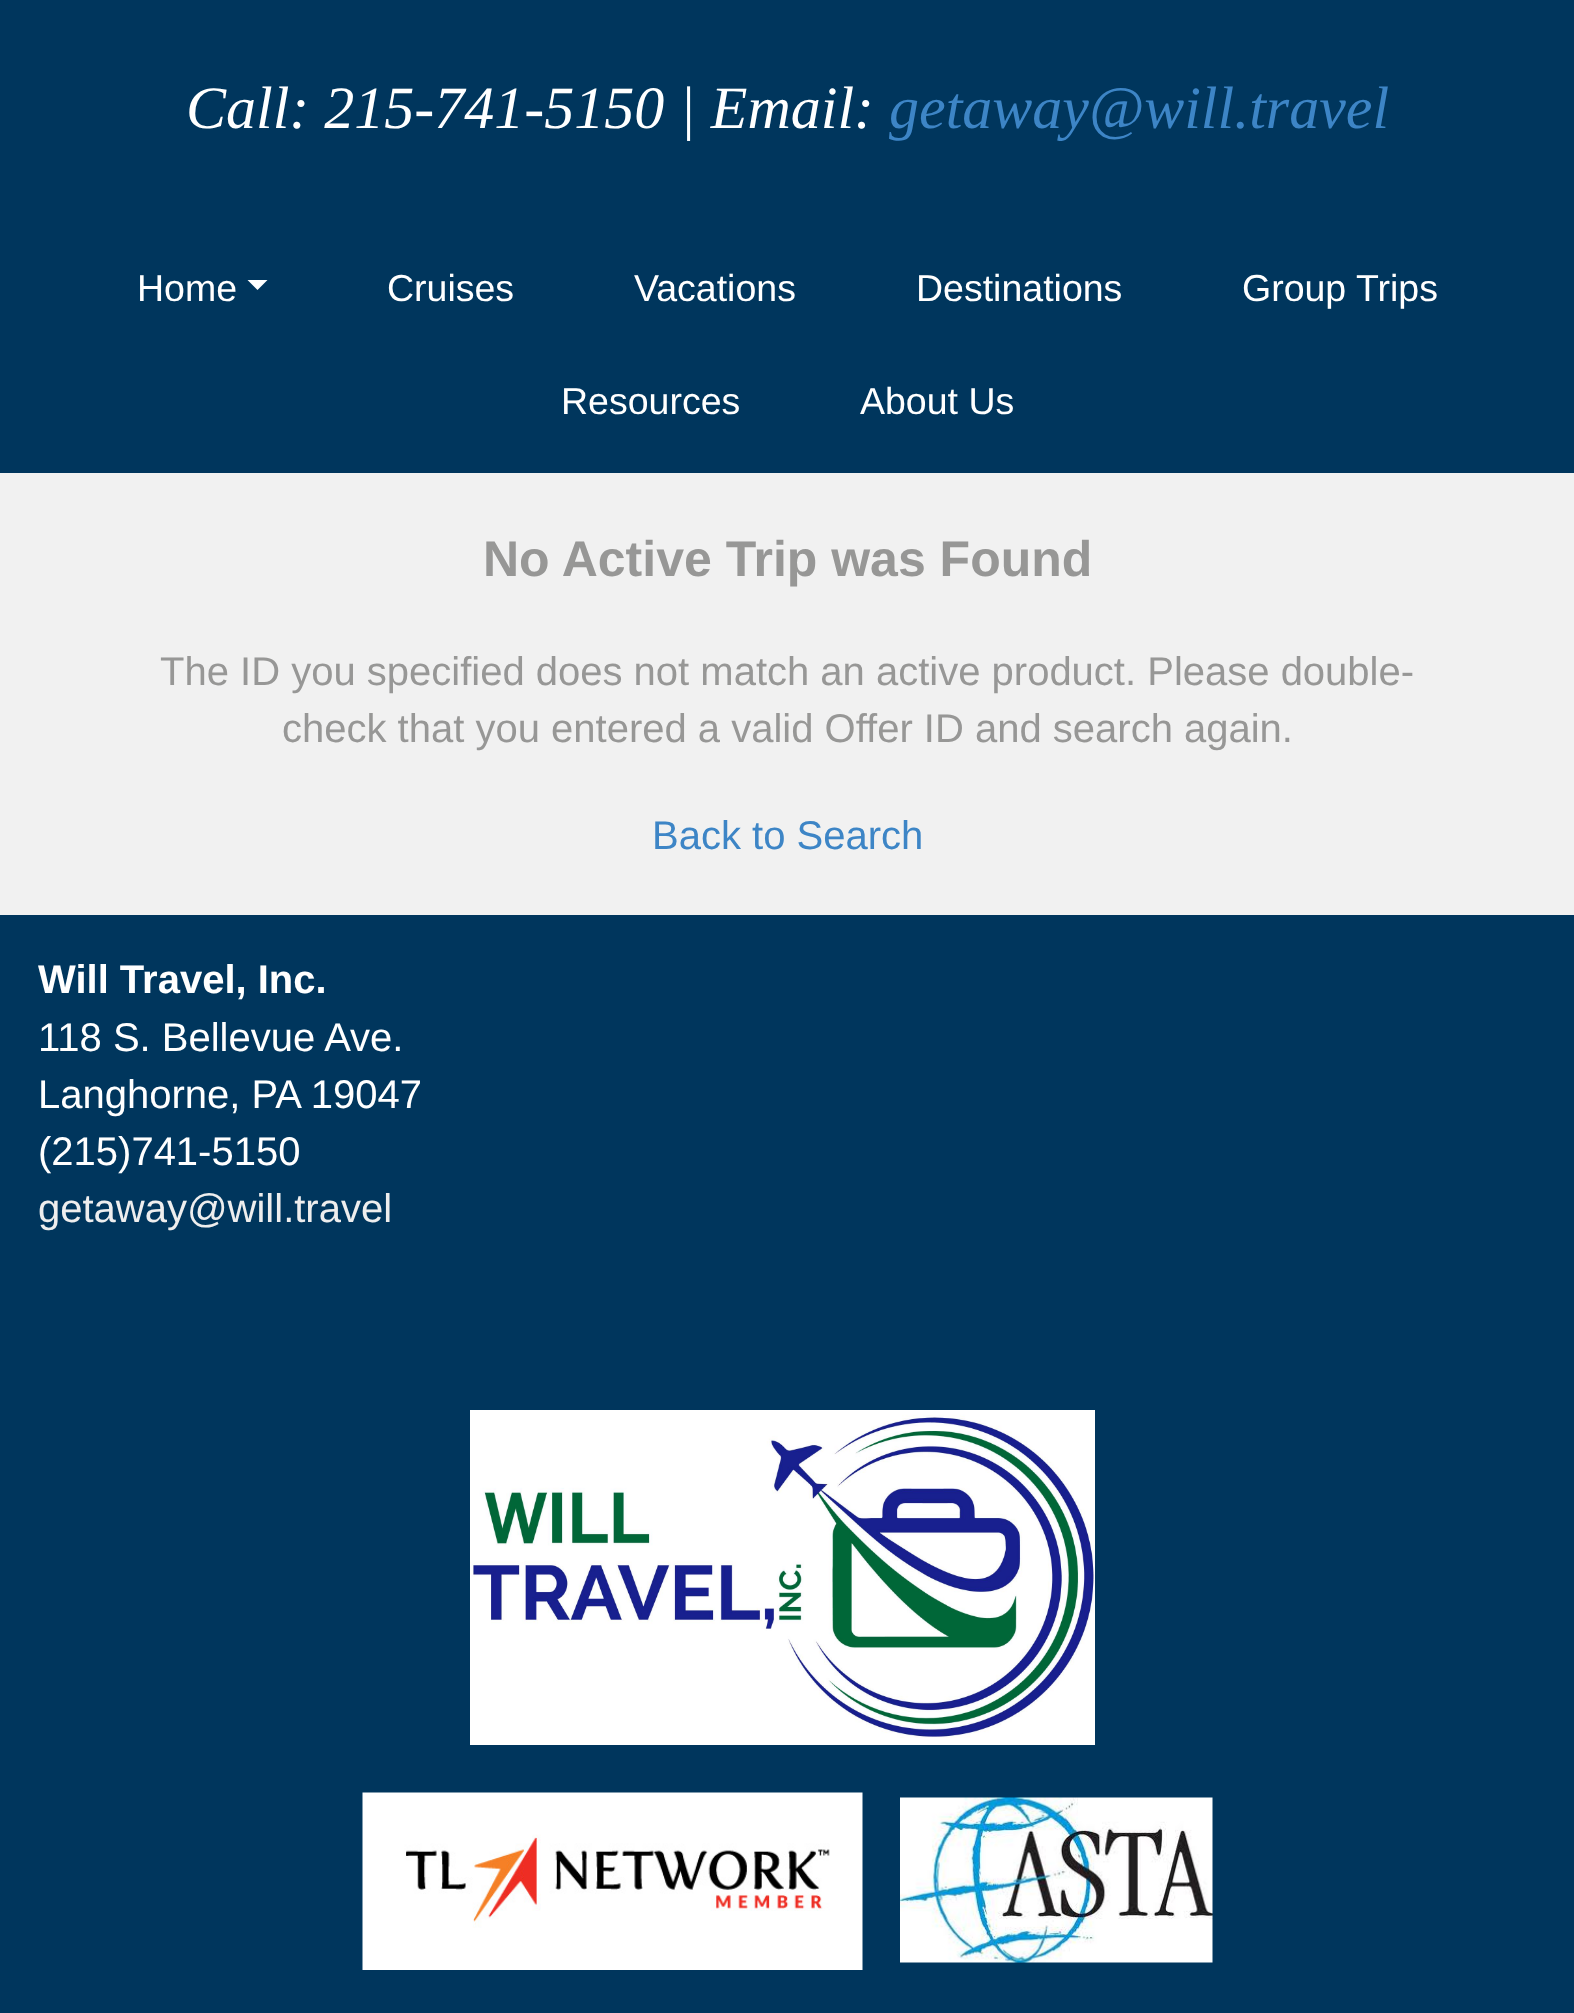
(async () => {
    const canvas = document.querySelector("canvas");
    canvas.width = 1574;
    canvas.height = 2013;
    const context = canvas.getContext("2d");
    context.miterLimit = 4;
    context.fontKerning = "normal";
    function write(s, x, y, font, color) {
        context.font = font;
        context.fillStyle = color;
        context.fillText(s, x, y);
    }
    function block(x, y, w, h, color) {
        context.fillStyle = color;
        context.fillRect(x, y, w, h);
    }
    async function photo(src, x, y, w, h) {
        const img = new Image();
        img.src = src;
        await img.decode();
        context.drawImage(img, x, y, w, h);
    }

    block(0, 0, 1574, 2013, "rgb(241, 241, 241)");
    block(0, 0, 1574, 473, "rgb(0, 54, 93)");
    write("Call: 215-741-5150 | Email:", 186, 128, "italic 60px Liberation Serif", "rgb(255, 255, 255)");
    write("getaway@will.travel", 889, 128, "italic 60px Liberation Serif", "rgb(61, 133, 198)");
    write("Home", 137, 301, "37.5px Liberation Sans", "rgb(255, 255, 255)");
    context.beginPath();
    context.moveTo(247.5, 280);
    context.lineTo(267.5, 280);
    context.lineTo(257.5, 290);
    context.closePath();
    context.fill();
    write("Cruises", 387, 301, "37.5px Liberation Sans", "rgb(255, 255, 255)");
    write("Vacations", 634, 301, "37.5px Liberation Sans", "rgb(255, 255, 255)");
    write("Destinations", 916, 301, "37.5px Liberation Sans", "rgb(255, 255, 255)");
    write("Group Trips", 1242, 301, "37.5px Liberation Sans", "rgb(255, 255, 255)");
    write("Resources", 561, 414, "37.5px Liberation Sans", "rgb(255, 255, 255)");
    write("About Us", 860, 414, "37.5px Liberation Sans", "rgb(255, 255, 255)");
    write("No Active Trip was Found", 483, 576, "bold 50px Liberation Sans", "rgb(151, 151, 150)");
    write("The ID you specified does not match an active product. Please double-", 160, 685, "40px Liberation Sans", "rgb(151, 151, 150)");
    write("check that you entered a valid Offer ID and search again.", 282, 742, "40px Liberation Sans", "rgb(151, 151, 150)");
    write("Back to Search", 652, 849, "40px Liberation Sans", "rgb(61, 133, 198)");
    block(0, 915, 1574, 1098, "rgb(0, 54, 93)");
    write("Will Travel, Inc.", 38, 993, "bold 40px Liberation Sans", "rgb(255, 255, 255)");
    write("118 S. Bellevue Ave.", 38, 1051, "40px Liberation Sans", "rgb(255, 255, 255)");
    write("Langhorne, PA 19047", 38, 1108, "40px Liberation Sans", "rgb(255, 255, 255)");
    write("(215)741-5150", 38, 1165, "40px Liberation Sans", "rgb(255, 255, 255)");
    write("getaway@will.travel", 38, 1222, "40px Liberation Sans", "rgb(238, 238, 238)");
    await photo("media/1.png", 470, 1410, 625, 335);
    await photo("media/2.png", 362, 1792, 501, 178);
    await photo("media/3.png", 900, 1797, 313, 166);
})();
